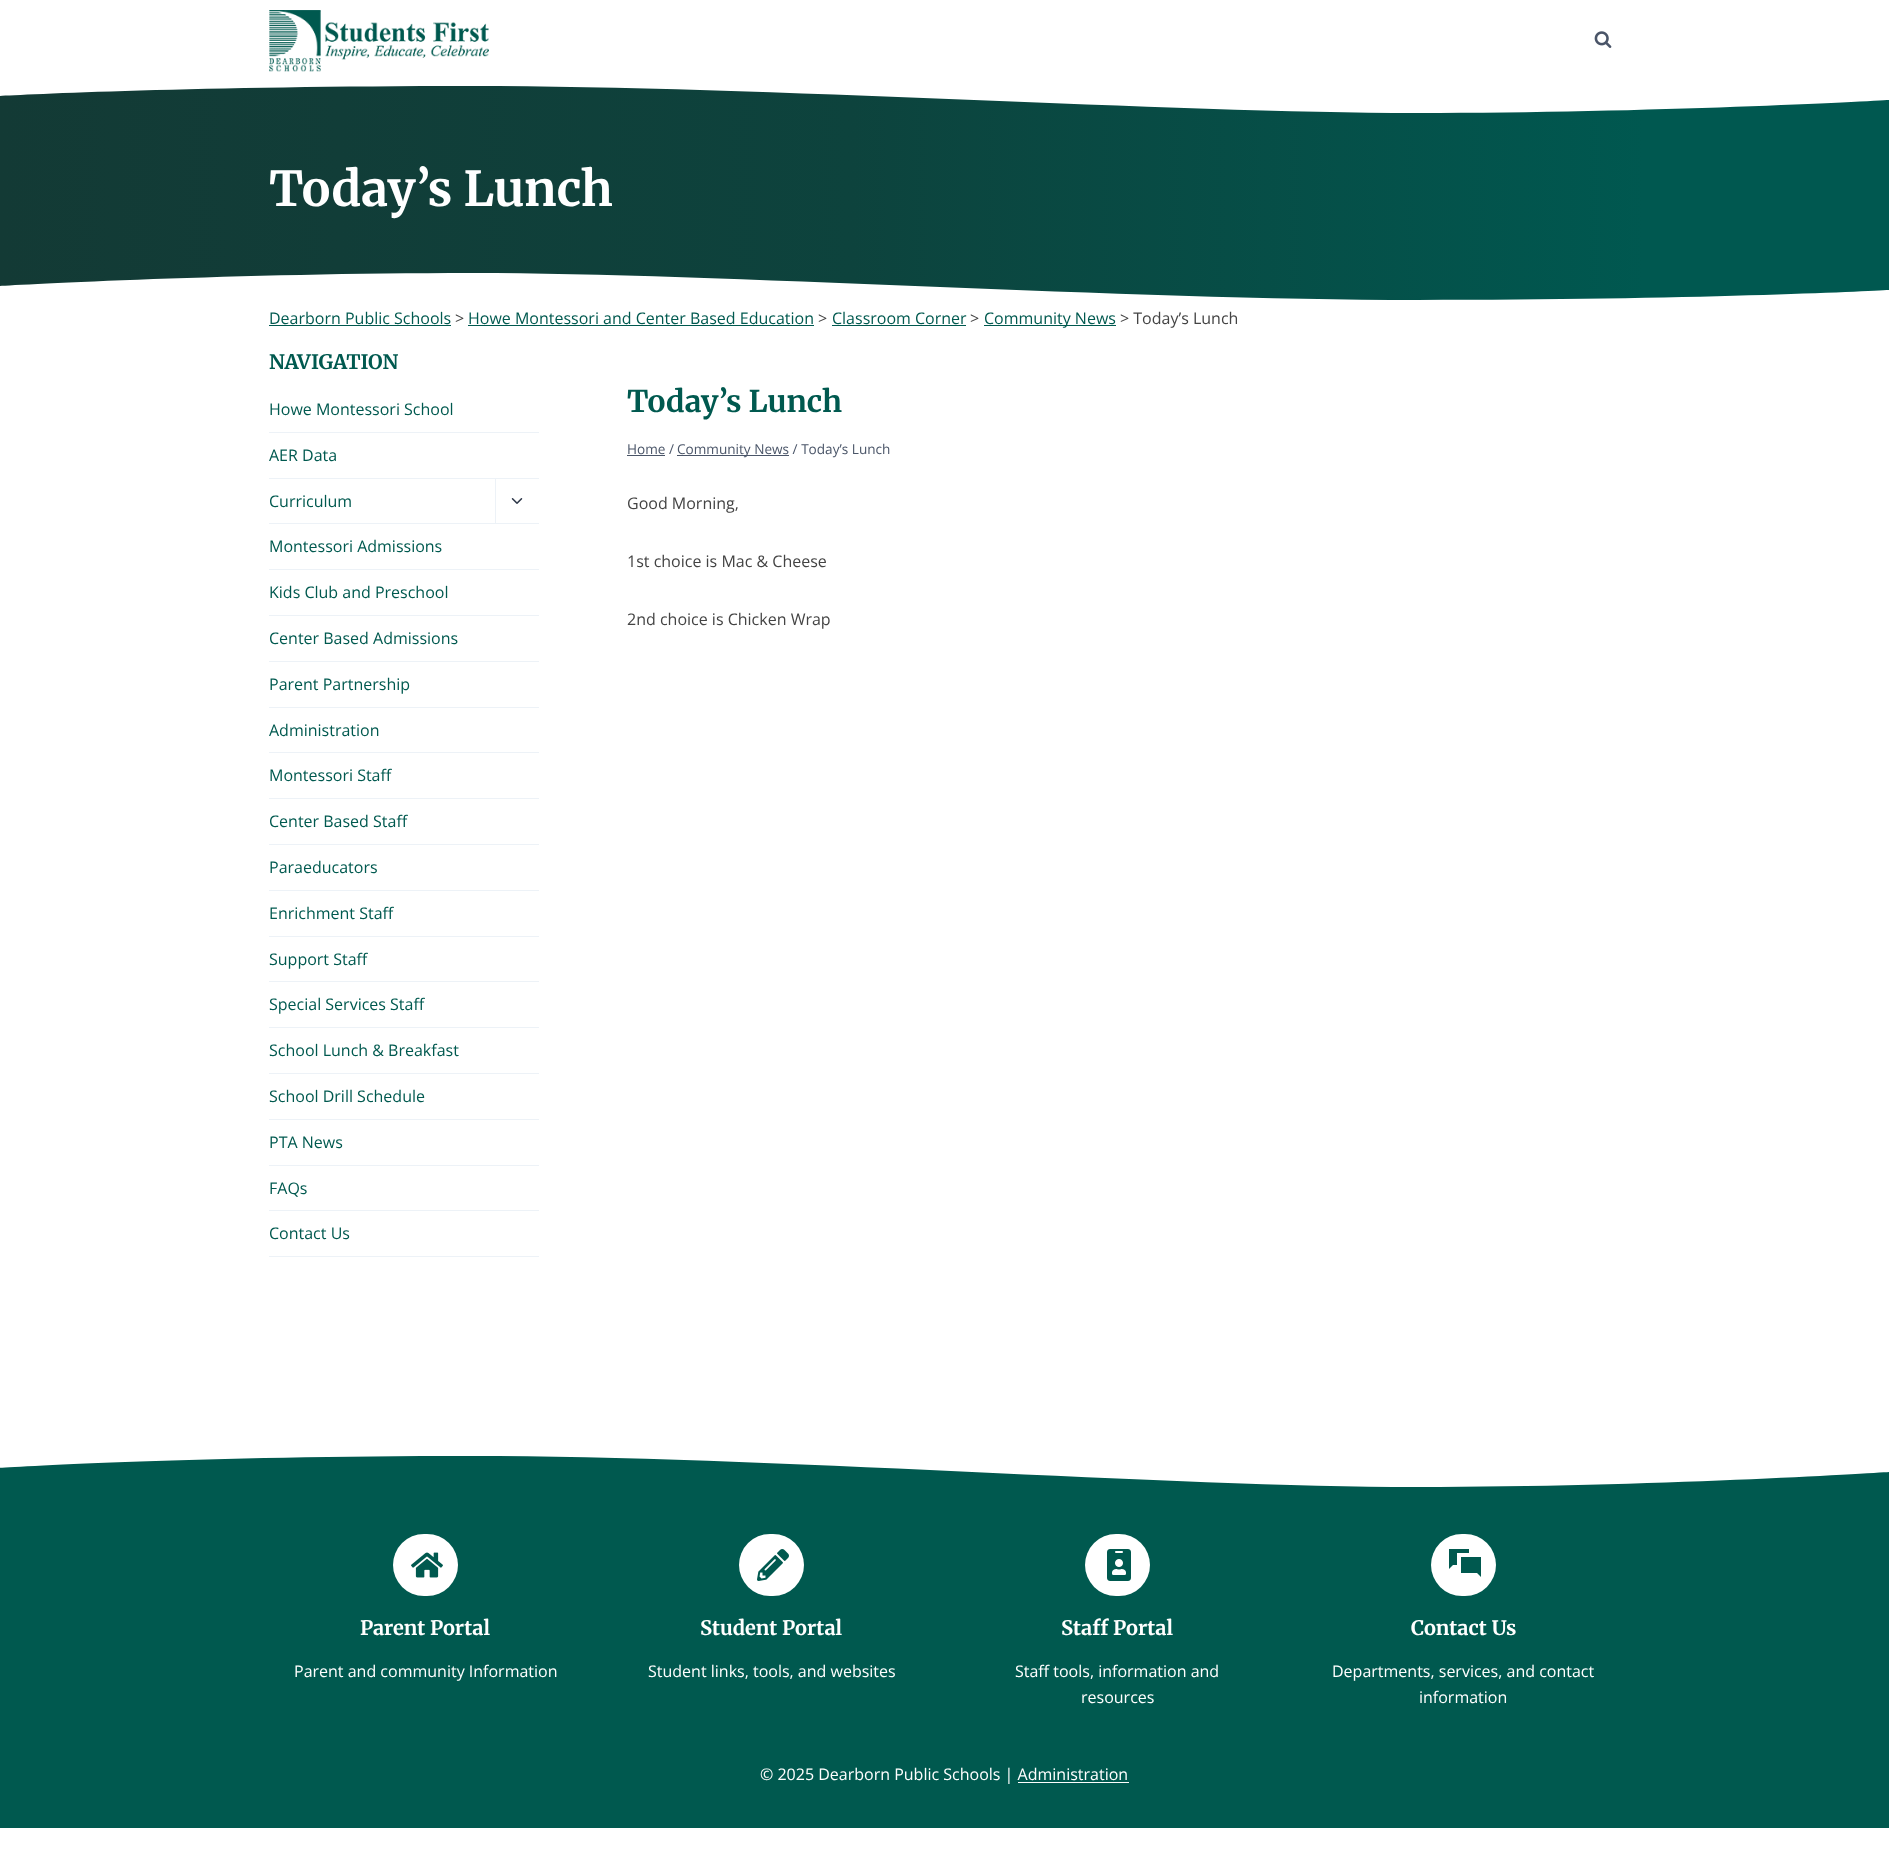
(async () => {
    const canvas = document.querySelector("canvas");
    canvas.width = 1889;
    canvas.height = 1860;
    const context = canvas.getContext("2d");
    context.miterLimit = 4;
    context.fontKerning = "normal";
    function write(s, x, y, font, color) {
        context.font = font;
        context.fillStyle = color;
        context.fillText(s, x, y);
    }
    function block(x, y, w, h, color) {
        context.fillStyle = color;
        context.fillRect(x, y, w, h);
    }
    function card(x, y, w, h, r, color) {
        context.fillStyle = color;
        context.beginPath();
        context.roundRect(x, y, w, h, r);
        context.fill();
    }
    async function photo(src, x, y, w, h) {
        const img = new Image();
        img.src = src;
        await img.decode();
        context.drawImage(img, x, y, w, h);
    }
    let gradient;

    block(0, 0, 1889, 1860, "rgb(255, 255, 255)");
    await photo("media/1.png", 269, 10, 220, 62);
    await photo("media/2.png", 1594, 31, 18, 17);
    gradient = context.createLinearGradient(0, 194, 1889, 193);
    gradient.addColorStop(0, "rgb(19, 58, 53)");
    gradient.addColorStop(0.18, "rgb(17, 61, 56)");
    gradient.addColorStop(0.45, "rgb(13, 67, 61)");
    gradient.addColorStop(0.87, "rgb(0, 88, 80)");
    context.fillStyle = gradient;
    context.fillRect(0, 86, 1889, 214);
    context.fillStyle = "rgb(255, 255, 255)";
    context.beginPath();
    context.moveTo(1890, 100);
    context.bezierCurveTo(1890, 100, 1663, 113, 1417, 113);
    context.bezierCurveTo(1171, 113, 764, 86, 471, 86);
    context.bezierCurveTo(178, 86, -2, 96, -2, 96);
    context.lineTo(-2, 79);
    context.lineTo(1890, 79);
    context.closePath();
    context.fill();
    write("Today’s Lunch", 269, 206, "300 48px Merriweather", "rgb(255, 255, 255)");
    context.beginPath();
    context.moveTo(-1, 286);
    context.bezierCurveTo(-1, 286, 226, 273, 472, 273);
    context.bezierCurveTo(718, 273, 1125, 300, 1418, 300);
    context.bezierCurveTo(1711, 300, 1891, 290, 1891, 290);
    context.lineTo(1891, 307);
    context.lineTo(-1, 307);
    context.closePath();
    context.fill();
    write("Dearborn Public Schools", 269, 324, "16px Open Sans", "rgb(0, 89, 79)");
    block(269, 325, 182, 1, "rgb(0, 89, 79)");
    write(">", 455, 324, "16px Open Sans", "rgb(68, 68, 68)");
    write("Howe Montessori and Center Based Education", 468, 324, "16px Open Sans", "rgb(0, 89, 79)");
    block(468, 325, 346, 1, "rgb(0, 89, 79)");
    write(">", 818, 324, "16px Open Sans", "rgb(68, 68, 68)");
    write("Classroom Corner", 832, 324, "16px Open Sans", "rgb(0, 89, 79)");
    block(832, 325, 134, 1, "rgb(0, 89, 79)");
    write(">", 970, 324, "16px Open Sans", "rgb(68, 68, 68)");
    block(984, 325, 132, 1, "rgb(0, 89, 79)");
    write("Community News", 984, 324, "16px Open Sans", "rgb(0, 89, 79)");
    write("> Today’s Lunch", 1120, 324, "16px Open Sans", "rgb(68, 68, 68)");
    write("NAVIGATION", 269, 369, "300 20px Merriweather", "rgb(0, 89, 79)");
    block(269, 432, 270, 1, "rgb(237, 242, 247)");
    write("Howe Montessori School", 269, 415, "16px Open Sans", "rgb(0, 89, 79)");
    block(269, 478, 270, 1, "rgb(237, 242, 247)");
    write("AER Data", 269, 461, "16px Open Sans", "rgb(0, 89, 79)");
    block(269, 523, 270, 1, "rgb(237, 242, 247)");
    write("Curriculum", 269, 507, "16px Open Sans", "rgb(0, 89, 79)");
    block(495, 479, 1, 45, "rgb(237, 242, 247)");
    await photo("media/3.png", 511, 498, 12, 6);
    block(269, 569, 270, 1, "rgb(237, 242, 247)");
    write("Montessori Admissions", 269, 552, "16px Open Sans", "rgb(0, 89, 79)");
    block(269, 615, 270, 1, "rgb(237, 242, 247)");
    write("Kids Club and Preschool", 269, 598, "16px Open Sans", "rgb(0, 89, 79)");
    block(269, 661, 270, 1, "rgb(237, 242, 247)");
    write("Center Based Admissions", 269, 644, "16px Open Sans", "rgb(0, 89, 79)");
    block(269, 707, 270, 1, "rgb(237, 242, 247)");
    write("Parent Partnership", 269, 690, "16px Open Sans", "rgb(0, 89, 79)");
    block(269, 752, 270, 1, "rgb(237, 242, 247)");
    write("Administration", 269, 736, "16px Open Sans", "rgb(0, 89, 79)");
    block(269, 798, 270, 1, "rgb(237, 242, 247)");
    write("Montessori Staff", 269, 781, "16px Open Sans", "rgb(0, 89, 79)");
    block(269, 844, 270, 1, "rgb(237, 242, 247)");
    write("Center Based Staff", 269, 827, "16px Open Sans", "rgb(0, 89, 79)");
    block(269, 890, 270, 1, "rgb(237, 242, 247)");
    write("Paraeducators", 269, 873, "16px Open Sans", "rgb(0, 89, 79)");
    block(269, 936, 270, 1, "rgb(237, 242, 247)");
    write("Enrichment Staff", 269, 919, "16px Open Sans", "rgb(0, 89, 79)");
    block(269, 981, 270, 1, "rgb(237, 242, 247)");
    write("Support Staff", 269, 965, "16px Open Sans", "rgb(0, 89, 79)");
    block(269, 1027, 270, 1, "rgb(237, 242, 247)");
    write("Special Services Staff", 269, 1010, "16px Open Sans", "rgb(0, 89, 79)");
    block(269, 1073, 270, 1, "rgb(237, 242, 247)");
    write("School Lunch & Breakfast", 269, 1056, "16px Open Sans", "rgb(0, 89, 79)");
    block(269, 1119, 270, 1, "rgb(237, 242, 247)");
    write("School Drill Schedule", 269, 1102, "16px Open Sans", "rgb(0, 89, 79)");
    block(269, 1165, 270, 1, "rgb(237, 242, 247)");
    write("PTA News", 269, 1148, "16px Open Sans", "rgb(0, 89, 79)");
    block(269, 1210, 270, 1, "rgb(237, 242, 247)");
    write("FAQs", 269, 1194, "16px Open Sans", "rgb(0, 89, 79)");
    block(269, 1256, 270, 1, "rgb(237, 242, 247)");
    write("Contact Us", 269, 1239, "16px Open Sans", "rgb(0, 89, 79)");
    write("Today’s Lunch", 627, 412, "300 30px Merriweather", "rgb(0, 89, 79)");
    write("Home /", 627, 454, "13.6px Open Sans", "rgb(74, 85, 104)");
    block(627, 455, 38, 1, "rgb(74, 85, 104)");
    block(677, 455, 112, 1, "rgb(74, 85, 104)");
    write("Community News / Today’s Lunch", 677, 454, "13.6px Open Sans", "rgb(74, 85, 104)");
    write("Good Morning,", 627, 509, "16px Open Sans", "rgb(68, 68, 68)");
    write("1st choice is Mac & Cheese", 627, 567, "16px Open Sans", "rgb(68, 68, 68)");
    write("2nd choice is Chicken Wrap", 627, 625, "16px Open Sans", "rgb(68, 68, 68)");
    block(0, 1456, 1889, 372, "rgb(0, 89, 79)");
    context.save();
    context.beginPath();
    context.rect(0, 1449, 1889, 40);
    context.clip();
    context.fillStyle = "rgb(255, 255, 255)";
    context.beginPath();
    context.moveTo(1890, 1472);
    context.bezierCurveTo(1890, 1472, 1663, 1487, 1417, 1487);
    context.bezierCurveTo(1171, 1487, 764, 1456, 471, 1456);
    context.bezierCurveTo(178, 1456, -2, 1468, -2, 1468);
    context.lineTo(-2, 1448);
    context.lineTo(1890, 1448);
    context.closePath();
    context.fill();
    context.restore();
    card(393, 1534, 65, 62, 31, "rgb(255, 255, 255)");
    await photo("media/4.png", 411, 1552, 32, 26);
    write("Parent Portal", 360, 1635, "300 20px Merriweather", "rgb(255, 255, 255)");
    write("Parent and community Information", 294, 1677, "16px Open Sans", "rgb(255, 255, 255)");
    card(739, 1534, 65, 62, 31, "rgb(255, 255, 255)");
    await photo("media/5.png", 757, 1549, 32, 32);
    write("Student Portal", 700, 1635, "300 20px Merriweather", "rgb(255, 255, 255)");
    write("Student links, tools, and websites", 648, 1677, "16px Open Sans", "rgb(255, 255, 255)");
    card(1085, 1534, 65, 62, 31, "rgb(255, 255, 255)");
    await photo("media/6.png", 1107, 1549, 24, 32);
    write("Staff Portal", 1061, 1635, "300 20px Merriweather", "rgb(255, 255, 255)");
    write("Staff tools, information and", 1015, 1677, "16px Open Sans", "rgb(255, 255, 255)");
    write("resources", 1081, 1703, "16px Open Sans", "rgb(255, 255, 255)");
    card(1431, 1534, 65, 62, 31, "rgb(255, 255, 255)");
    await photo("media/7.png", 1449, 1549, 32, 28);
    write("Contact Us", 1411, 1635, "300 20px Merriweather", "rgb(255, 255, 255)");
    write("Departments, services, and contact", 1332, 1677, "16px Open Sans", "rgb(255, 255, 255)");
    write("information", 1419, 1703, "16px Open Sans", "rgb(255, 255, 255)");
    write("© 2025 Dearborn Public Schools | Administration", 760, 1780, "16px Open Sans", "rgb(255, 255, 255)");
    block(1018, 1782, 111, 1, "rgb(255, 255, 255)");
})();
